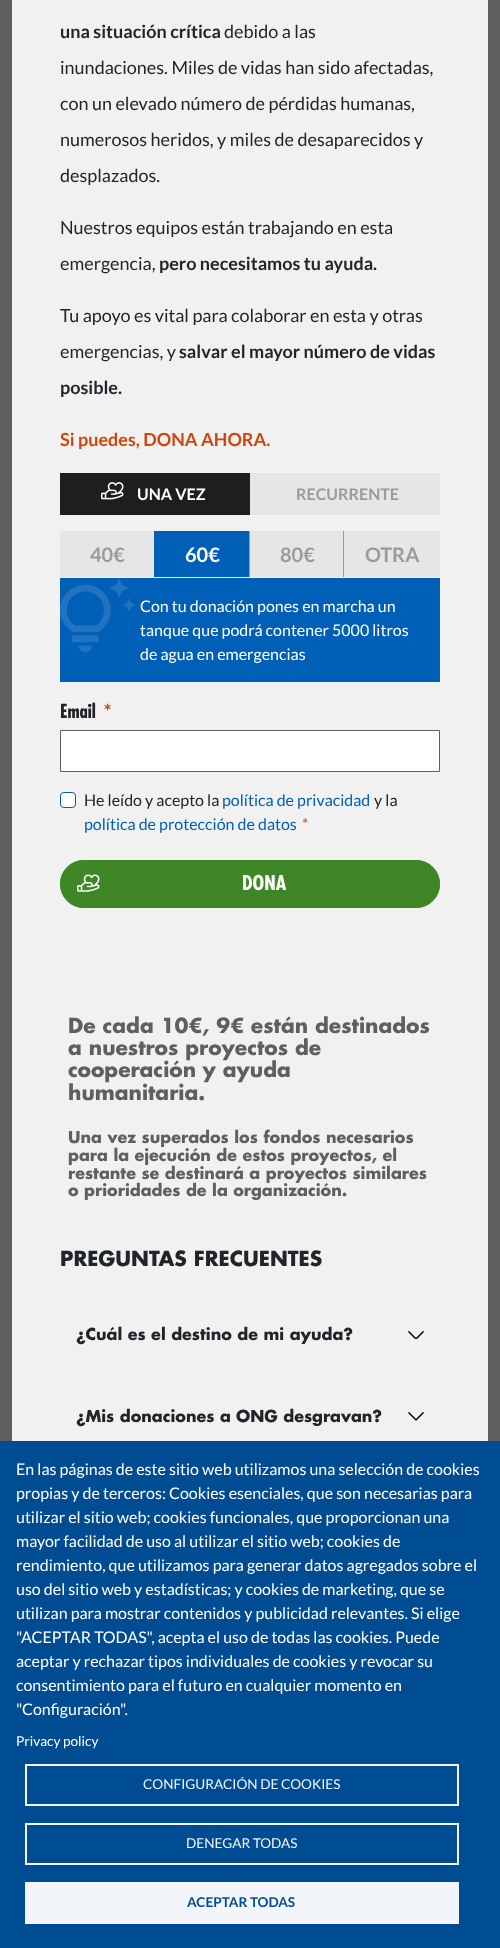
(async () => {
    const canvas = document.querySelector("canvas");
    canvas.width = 500;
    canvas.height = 1948;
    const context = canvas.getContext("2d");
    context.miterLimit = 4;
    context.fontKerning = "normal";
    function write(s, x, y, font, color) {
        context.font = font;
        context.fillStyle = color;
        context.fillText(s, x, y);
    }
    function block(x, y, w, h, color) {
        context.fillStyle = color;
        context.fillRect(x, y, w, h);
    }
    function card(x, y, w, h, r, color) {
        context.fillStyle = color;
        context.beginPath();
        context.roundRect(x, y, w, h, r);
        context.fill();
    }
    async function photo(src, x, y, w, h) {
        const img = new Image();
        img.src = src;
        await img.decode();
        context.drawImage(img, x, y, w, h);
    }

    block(0, 0, 500, 1948, "rgb(95, 95, 95)");
    block(12, 0, 476, 1441, "rgb(241, 241, 241)");
    write("una situación crítica", 60, 38, "bold 18px Lato", "rgb(33, 37, 41)");
    write("debido a las", 224, 38, "18px Lato", "rgb(33, 37, 41)");
    write("inundaciones. Miles de vidas han sido afectadas,", 60, 74, "18px Lato", "rgb(33, 37, 41)");
    write("con un elevado número de pérdidas humanas,", 60, 110, "18px Lato", "rgb(33, 37, 41)");
    write("numerosos heridos, y miles de desaparecidos y", 60, 146, "18px Lato", "rgb(33, 37, 41)");
    write("desplazados.", 60, 182, "18px Lato", "rgb(33, 37, 41)");
    write("Nuestros equipos están trabajando en esta", 60, 234, "18px Lato", "rgb(33, 37, 41)");
    write("emergencia,", 60, 270, "18px Lato", "rgb(33, 37, 41)");
    write("pero necesitamos tu ayuda.", 159, 270, "bold 18px Lato", "rgb(33, 37, 41)");
    write("Tu apoyo es vital para colaborar en esta y otras", 60, 322, "18px Lato", "rgb(33, 37, 41)");
    write("emergencias, y", 60, 358, "18px Lato", "rgb(33, 37, 41)");
    write("salvar el mayor número de vidas", 179, 358, "bold 18px Lato", "rgb(33, 37, 41)");
    write("posible.", 60, 394, "bold 18px Lato", "rgb(33, 37, 41)");
    write("Si puedes, DONA AHORA.", 60, 446, "bold 18px Lato", "rgb(206, 71, 13)");
    block(60, 473, 190, 42, "rgb(30, 30, 30)");
    await photo("media/1.png", 101, 482, 23, 18);
    write("UNA VEZ", 137, 500, "bold 16px Lato", "rgb(255, 255, 255)");
    block(250, 473, 190, 42, "rgb(230, 230, 230)");
    write("RECURRENTE", 296, 500, "bold 16px Lato", "rgb(155, 155, 155)");
    block(60, 531, 94, 46, "rgb(230, 230, 230)");
    write("40€", 90, 562, "bold 20px Lato", "rgb(155, 155, 155)");
    block(154, 531, 95, 46, "rgb(0, 95, 182)");
    write("60€", 185, 562, "bold 20px Lato", "rgb(255, 255, 255)");
    block(250, 531, 93, 46, "rgb(230, 230, 230)");
    block(249, 531, 1, 46, "rgb(155, 155, 155)");
    write("80€", 280, 562, "bold 20px Lato", "rgb(155, 155, 155)");
    block(344, 531, 96, 46, "rgb(230, 230, 230)");
    block(343, 531, 1, 46, "rgb(155, 155, 155)");
    write("OTRA", 365, 562, "bold 20px Lato", "rgb(155, 155, 155)");
    block(60, 578, 380, 104, "rgb(0, 95, 182)");
    await photo("media/2.png", 60, 578, 76, 74);
    write("Con tu donación pones en marcha un", 140, 612, "16px Lato", "rgb(255, 255, 255)");
    write("tanque que podrá contener 5000 litros", 140, 636, "16px Lato", "rgb(255, 255, 255)");
    write("de agua en emergencias", 140, 660, "16px Lato", "rgb(255, 255, 255)");
    write("Email", 60, 718, "bold 19px Futura", "rgb(33, 37, 41)");
    write("*", 104, 718, "bold 19px Futura", "rgb(206, 71, 13)");
    context.fillStyle = "rgb(255, 255, 255)";
    context.beginPath();
    context.rect(60.5, 730.5, 379, 41);
    context.fill();
    context.strokeStyle = "rgb(95, 95, 95)";
    context.stroke();
    context.beginPath();
    context.roundRect(60.5, 792.5, 15, 15, 3.5);
    context.fill();
    context.strokeStyle = "rgb(0, 95, 182)";
    context.stroke();
    write("He leído y acepto la", 84, 806, "16px Lato", "rgb(33, 37, 41)");
    write("política de privacidad", 222, 806, "16px Lato", "rgb(0, 95, 182)");
    write("y la", 374, 806, "16px Lato", "rgb(33, 37, 41)");
    write("política de protección de datos", 84, 830, "16px Lato", "rgb(0, 95, 182)");
    write("*", 302, 830, "16px Lato", "rgb(206, 71, 13)");
    card(60, 860, 380, 48, 24, "rgb(63, 134, 39)");
    await photo("media/3.png", 77, 874, 23, 18);
    context.beginPath();
    context.roundRect(60.5, 860.5, 379, 47, 23.5);
    context.strokeStyle = "rgb(63, 134, 39)";
    context.stroke();
    write("DONA", 242, 890, "bold 20px Futura", "rgb(255, 255, 255)");
    write("De cada 10€, 9€ están destinados", 68, 1033, "bold 20.25px 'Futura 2'", "rgb(95, 95, 95)");
    write("a nuestros proyectos de", 68, 1055, "bold 20.25px 'Futura 2'", "rgb(95, 95, 95)");
    write("cooperación y ayuda", 68, 1077, "bold 20.25px 'Futura 2'", "rgb(95, 95, 95)");
    write("humanitaria.", 68, 1100, "bold 20.25px 'Futura 2'", "rgb(95, 95, 95)");
    write("Una vez superados los fondos necesarios", 68, 1143, "bold 16px 'Futura 2'", "rgb(95, 95, 95)");
    write("para la ejecución de estos proyectos, el", 68, 1161, "bold 16px 'Futura 2'", "rgb(95, 95, 95)");
    write("restante se destinará a proyectos similares", 68, 1179, "bold 16px 'Futura 2'", "rgb(95, 95, 95)");
    write("o prioridades de la organización.", 68, 1196, "bold 16px 'Futura 2'", "rgb(95, 95, 95)");
    write("PREGUNTAS FRECUENTES", 60, 1266, "bold 20.25px 'Futura 2'", "rgb(33, 37, 41)");
    write("¿Cuál es el destino de mi ayuda?", 76, 1340, "bold 16px 'Futura 2'", "rgb(33, 37, 41)");
    await photo("media/4.png", 408, 1331, 16, 8);
    write("¿Mis donaciones a ONG desgravan?", 76, 1422, "bold 16px 'Futura 2'", "rgb(33, 37, 41)");
    await photo("media/5.png", 408, 1412, 16, 9);
    block(0, 1441, 500, 507, "rgb(0, 76, 147)");
    write("En las páginas de este sitio web utilizamos una selección de cookies", 16, 1475, "16px Lato", "rgb(255, 255, 255)");
    write("propias y de terceros: Cookies esenciales, que son necesarias para", 16, 1499, "16px Lato", "rgb(255, 255, 255)");
    write("utilizar el sitio web; cookies funcionales, que proporcionan una", 16, 1523, "16px Lato", "rgb(255, 255, 255)");
    write("mayor facilidad de uso al utilizar el sitio web; cookies de", 16, 1547, "16px Lato", "rgb(255, 255, 255)");
    write("rendimiento, que utilizamos para generar datos agregados sobre el", 16, 1571, "16px Lato", "rgb(255, 255, 255)");
    write("uso del sitio web y estadísticas; y cookies de marketing, que se", 16, 1595, "16px Lato", "rgb(255, 255, 255)");
    write("utilizan para mostrar contenidos y publicidad relevantes. Si elige", 16, 1619, "16px Lato", "rgb(255, 255, 255)");
    write("\"ACEPTAR TODAS\", acepta el uso de todas las cookies. Puede", 16, 1643, "16px Lato", "rgb(255, 255, 255)");
    write("aceptar y rechazar tipos individuales de cookies y revocar su", 16, 1667, "16px Lato", "rgb(255, 255, 255)");
    write("consentimiento para el futuro en cualquier momento en", 16, 1691, "16px Lato", "rgb(255, 255, 255)");
    write("\"Configuración\".", 16, 1715, "16px Lato", "rgb(255, 255, 255)");
    write("Privacy policy", 16, 1746, "13.6px Lato", "rgb(255, 255, 255)");
    context.strokeStyle = "rgb(242, 246, 250)";
    context.lineWidth = 2;
    context.strokeRect(26, 1765, 432, 40);
    write("CONFIGURACIÓN DE COOKIES", 143, 1789, "13.6px Lato", "rgb(242, 246, 250)");
    context.strokeRect(26, 1824, 432, 40);
    write("DENEGAR TODAS", 186, 1848, "13.6px Lato", "rgb(242, 246, 250)");
    block(25, 1882, 434, 42, "rgb(242, 246, 250)");
    write("ACEPTAR TODAS", 187, 1907, "bold 13.6px Lato", "rgb(0, 76, 147)");
})();
